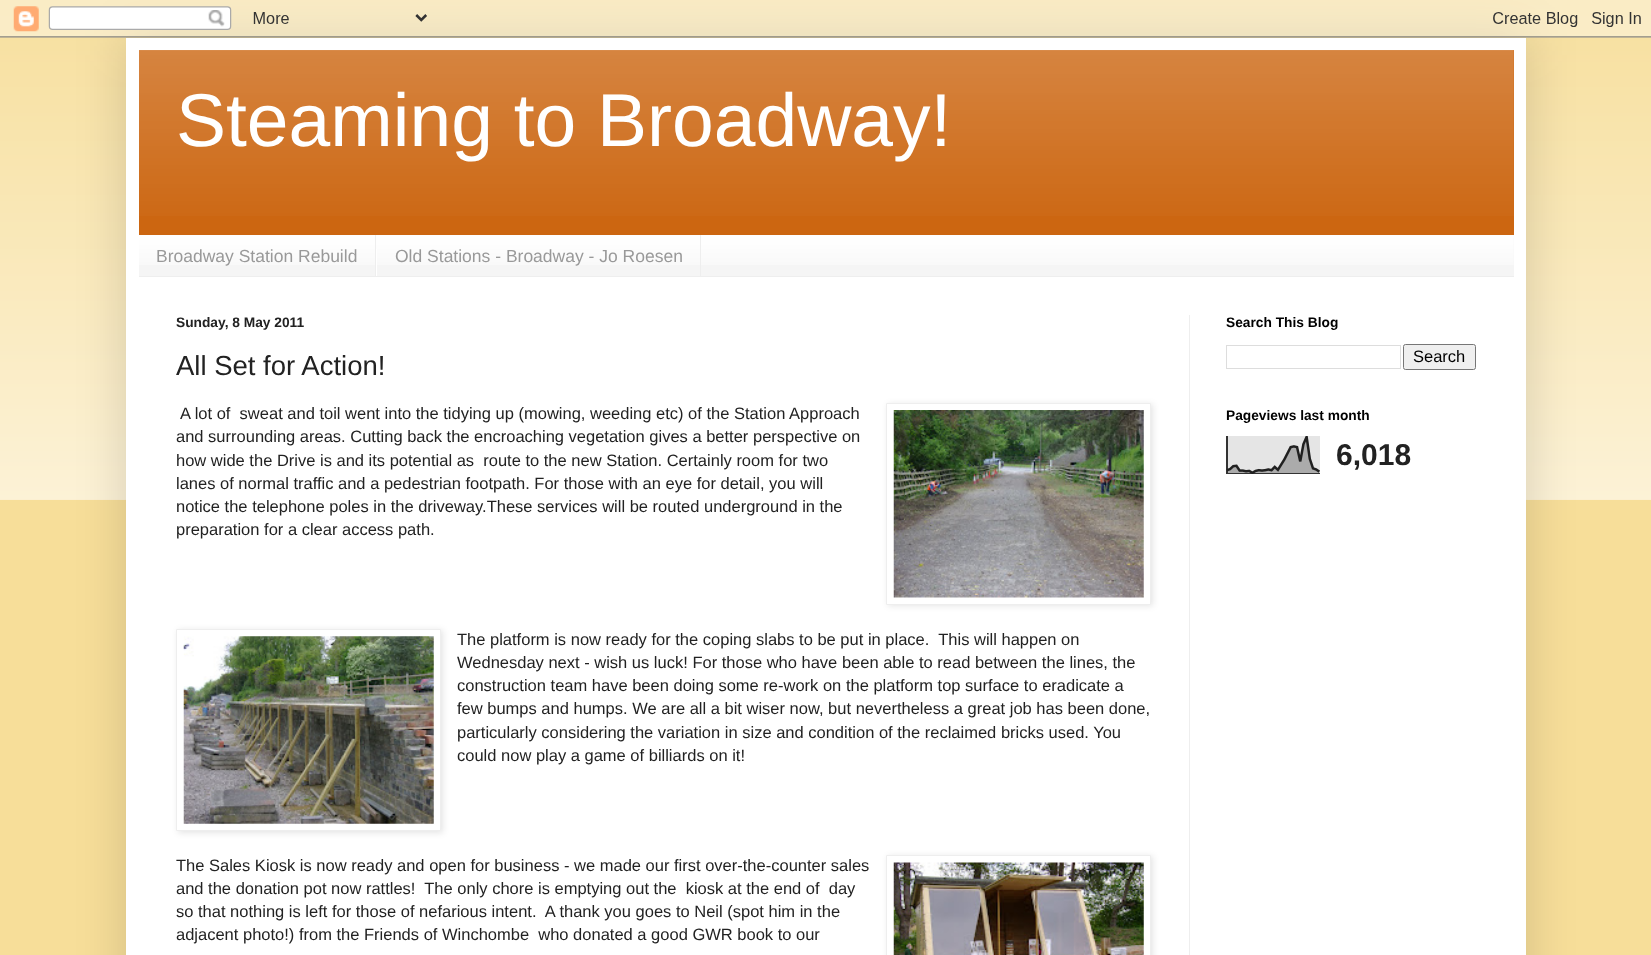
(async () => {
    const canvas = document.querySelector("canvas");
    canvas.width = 1651;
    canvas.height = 955;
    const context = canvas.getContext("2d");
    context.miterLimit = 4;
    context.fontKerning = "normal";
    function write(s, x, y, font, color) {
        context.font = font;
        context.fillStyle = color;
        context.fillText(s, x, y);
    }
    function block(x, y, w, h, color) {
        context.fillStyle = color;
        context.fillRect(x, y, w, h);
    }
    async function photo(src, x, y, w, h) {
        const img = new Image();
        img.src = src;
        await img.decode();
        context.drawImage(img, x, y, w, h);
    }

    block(0, 0, 1651, 955, "rgb(247, 222, 153)");
    await photo("media/1.png", 0, 0, 1651, 500);
    context.fillStyle = "rgba(0, 0, 0, 0.15)";
    context.filter = "blur(25px)";
    context.beginPath();
    context.rect(126, 38, 1400, 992);
    context.fill();
    context.filter = "none";
    await photo("media/2.png", 0, 0, 1651, 38);
    block(126, 38, 1400, 917, "rgb(255, 255, 255)");
    block(139, 50, 1375, 185, "rgb(204, 102, 17)");
    await photo("media/3.png", 139, 50, 1375, 166);
    write("Steaming to Broadway!", 176, 146, "75px Liberation Sans", "rgb(255, 255, 255)");
    block(139, 235, 1375, 41, "rgb(245, 245, 245)");
    await photo("media/4.png", 139, 235, 1375, 30);
    block(139, 276, 1375, 1, "rgb(238, 238, 238)");
    block(375, 235, 1, 41, "rgb(238, 238, 238)");
    write("Broadway Station Rebuild", 156, 262, "17.5px Liberation Sans", "rgb(153, 153, 153)");
    block(700, 235, 1, 41, "rgb(238, 238, 238)");
    block(376, 249, 1, 27, "rgb(255, 255, 255)");
    write("Old Stations - Broadway - Jo Roesen", 395, 262, "17.5px Liberation Sans", "rgb(153, 153, 153)");
    block(1189, 315, 1, 640, "rgb(238, 238, 238)");
    write("Sunday, 8 May 2011", 176, 327, "bold 13.75px Liberation Sans", "rgb(34, 34, 34)");
    write("All Set for Action!", 176, 375, "27.5px Liberation Sans", "rgb(34, 34, 34)");
    write("A lot of  sweat and toil went into the tidying up (mowing, weeding etc) of the Station Approach", 180, 419, "16.5px Liberation Sans", "rgb(34, 34, 34)");
    context.fillStyle = "rgba(0, 0, 0, 0.1)";
    context.filter = "blur(3px)";
    context.beginPath();
    context.rect(888, 404, 265, 202);
    context.fill();
    context.filter = "none";
    context.fillStyle = "rgb(255, 255, 255)";
    context.beginPath();
    context.rect(886.5, 403.5, 264, 201);
    context.fill();
    context.strokeStyle = "rgb(238, 238, 238)";
    context.stroke();
    await photo("media/5.png", 893, 410, 251, 188);
    write("and surrounding areas. Cutting back the encroaching vegetation gives a better perspective on", 176, 442, "16.5px Liberation Sans", "rgb(34, 34, 34)");
    write("how wide the Drive is and its potential as  route to the new Station. Certainly room for two", 176, 466, "16.5px Liberation Sans", "rgb(34, 34, 34)");
    write("lanes of normal traffic and a pedestrian footpath. For those with an eye for detail, you will", 176, 489, "16.5px Liberation Sans", "rgb(34, 34, 34)");
    write("notice the telephone poles in the driveway.These services will be routed underground in the", 176, 512, "16.5px Liberation Sans", "rgb(34, 34, 34)");
    write("preparation for a clear access path.", 176, 535, "16.5px Liberation Sans", "rgb(34, 34, 34)");
    context.fillStyle = "rgba(0, 0, 0, 0.1)";
    context.filter = "blur(3px)";
    context.beginPath();
    context.rect(178, 630, 265, 203);
    context.fill();
    context.filter = "none";
    context.fillStyle = "rgb(255, 255, 255)";
    context.beginPath();
    context.rect(176.5, 629.5, 264, 201);
    context.fill();
    context.stroke();
    await photo("media/6.png", 183, 636, 251, 188);
    write("The platform is now ready for the coping slabs to be put in place.  This will happen on", 457, 645, "16.5px Liberation Sans", "rgb(34, 34, 34)");
    write("Wednesday next - wish us luck! For those who have been able to read between the lines, the", 457, 668, "16.5px Liberation Sans", "rgb(34, 34, 34)");
    write("construction team have been doing some re-work on the platform top surface to eradicate a", 457, 691, "16.5px Liberation Sans", "rgb(34, 34, 34)");
    write("few bumps and humps. We are all a bit wiser now, but nevertheless a great job has been done,", 457, 714, "16.5px Liberation Sans", "rgb(34, 34, 34)");
    write("particularly considering the variation in size and condition of the reclaimed bricks used. You", 457, 738, "16.5px Liberation Sans", "rgb(34, 34, 34)");
    write("could now play a game of billiards on it!", 457, 761, "16.5px Liberation Sans", "rgb(34, 34, 34)");
    write("The Sales Kiosk is now ready and open for business - we made our first over-the-counter sales", 176, 871, "16.5px Liberation Sans", "rgb(34, 34, 34)");
    context.fillStyle = "rgba(0, 0, 0, 0.1)";
    context.filter = "blur(3px)";
    context.beginPath();
    context.rect(888, 856, 265, 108);
    context.fill();
    context.filter = "none";
    context.fillStyle = "rgb(255, 255, 255)";
    context.beginPath();
    context.rect(886.5, 855.5, 264, 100);
    context.fill();
    context.stroke();
    await photo("media/7.png", 893, 862, 251, 93);
    write("and the donation pot now rattles!  The only chore is emptying out the  kiosk at the end of  day", 176, 894, "16.5px Liberation Sans", "rgb(34, 34, 34)");
    write("so that nothing is left for those of nefarious intent.  A thank you goes to Neil (spot him in the", 176, 917, "16.5px Liberation Sans", "rgb(34, 34, 34)");
    write("adjacent photo!) from the Friends of Winchombe  who donated a good GWR book to our", 176, 940, "16.5px Liberation Sans", "rgb(34, 34, 34)");
    write("Search This Blog", 1226, 327, "bold 13.75px Liberation Sans", "rgb(0, 0, 0)");
    context.strokeStyle = "rgb(221, 221, 221)";
    context.strokeRect(1226.5, 345.5, 174, 23);
    context.fillStyle = "rgb(239, 239, 239)";
    context.beginPath();
    context.roundRect(1403.5, 344.5, 72, 25, 2);
    context.fill();
    context.strokeStyle = "rgb(118, 118, 118)";
    context.stroke();
    write("Search", 1413, 362, "16.5px Liberation Sans", "rgb(0, 0, 0)");
    write("Pageviews last month", 1226, 420, "bold 13.75px Liberation Sans", "rgb(0, 0, 0)");
    await photo("media/8.png", 1226, 436, 94, 38);
    write("6,018", 1336, 465, "bold 30px Liberation Sans", "rgb(34, 34, 34)");
})();
